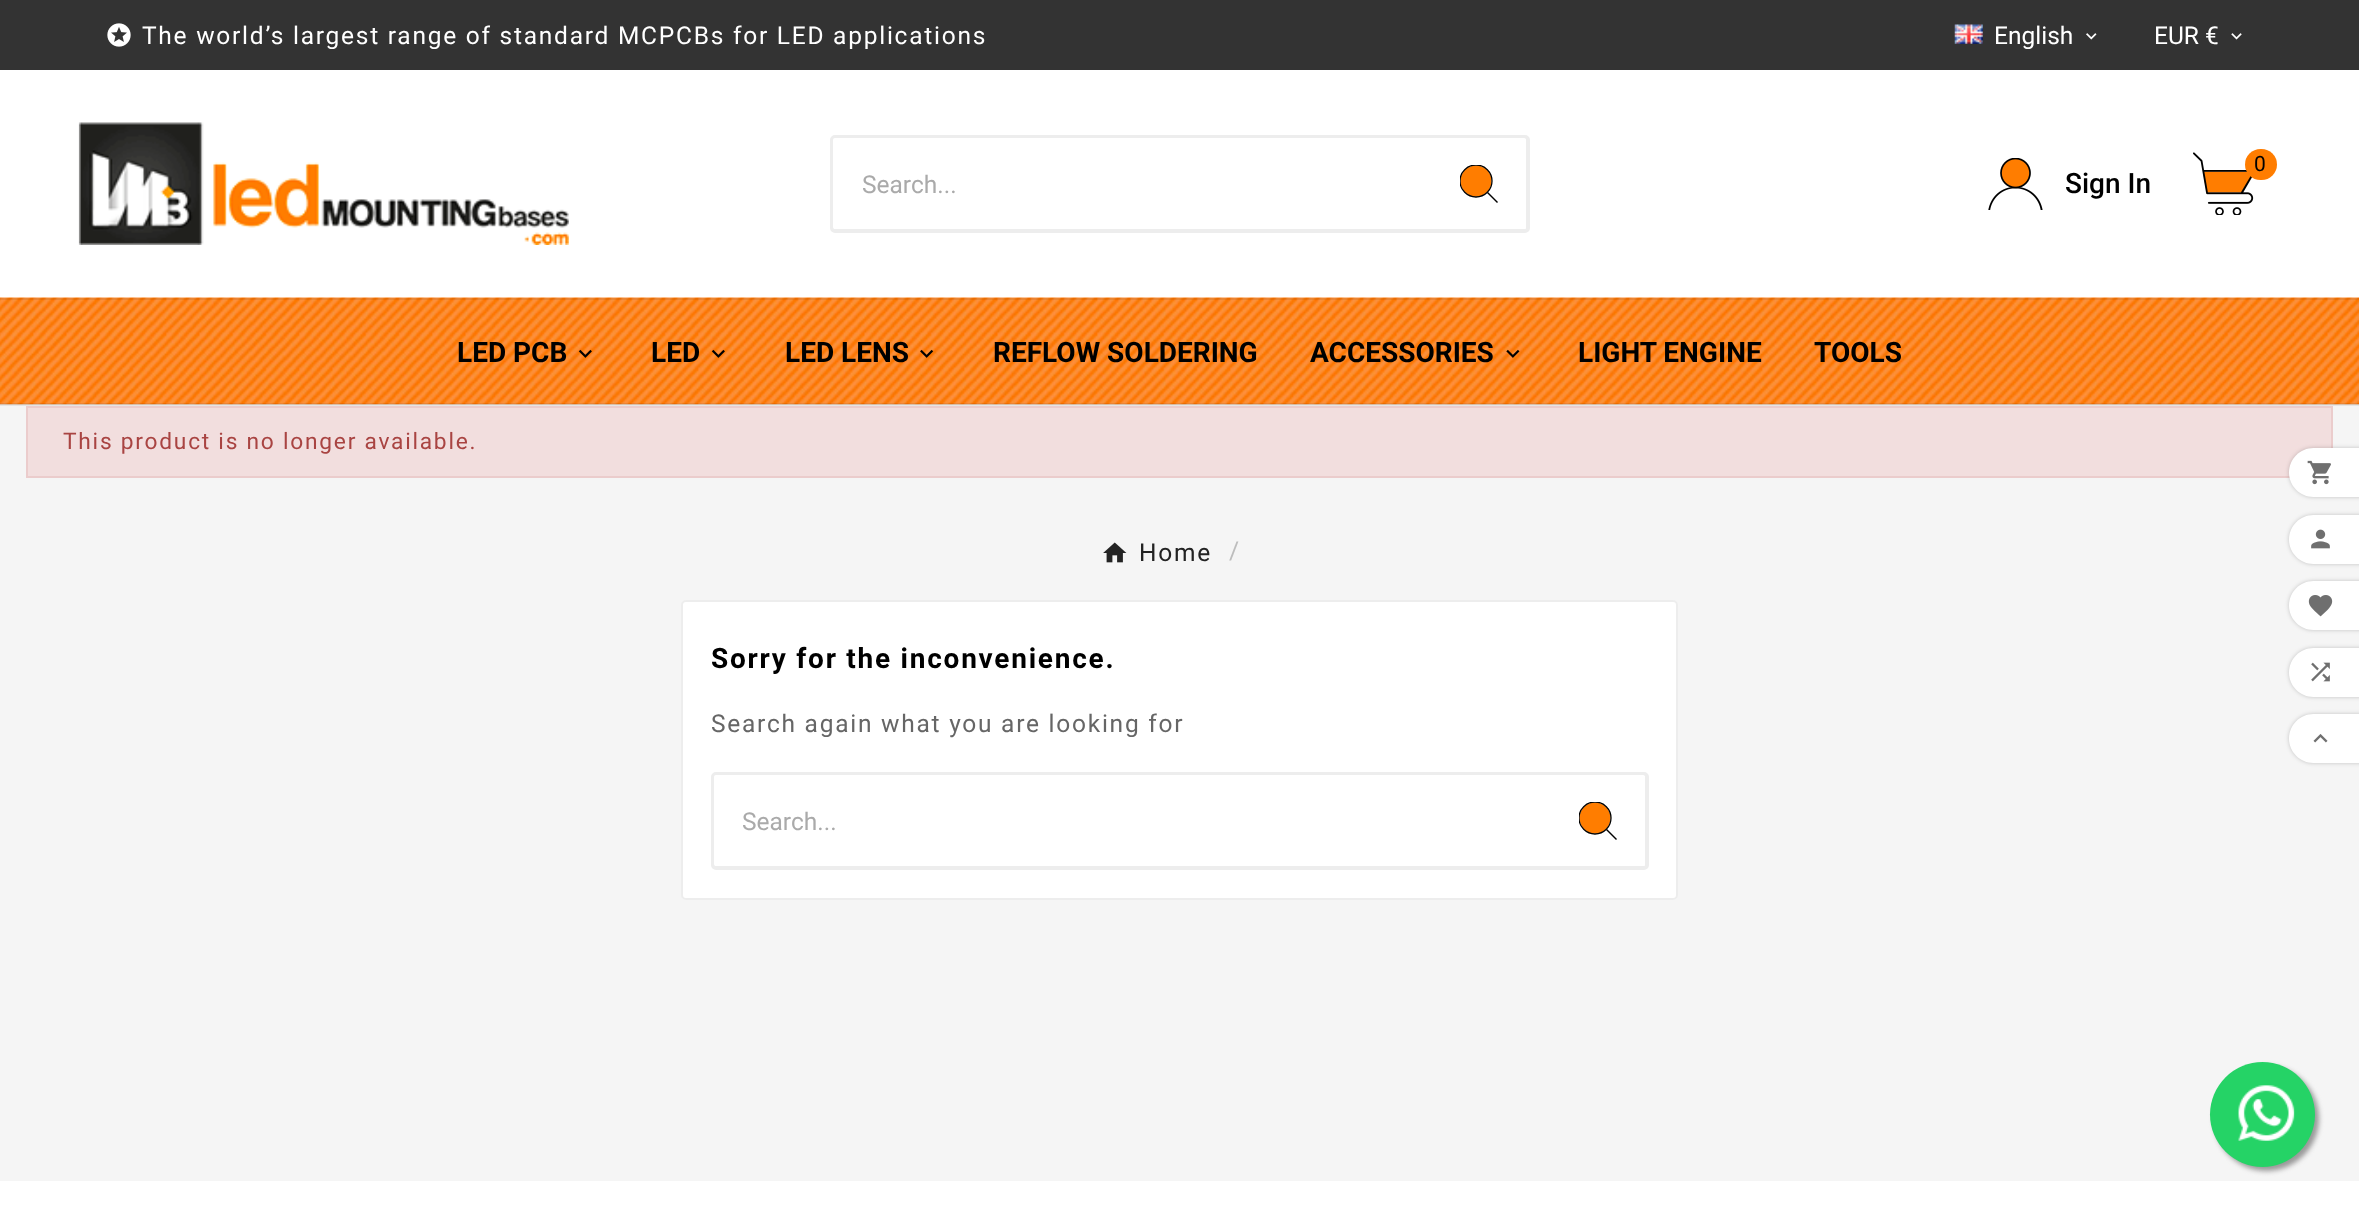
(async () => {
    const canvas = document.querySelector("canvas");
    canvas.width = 2359;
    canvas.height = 1210;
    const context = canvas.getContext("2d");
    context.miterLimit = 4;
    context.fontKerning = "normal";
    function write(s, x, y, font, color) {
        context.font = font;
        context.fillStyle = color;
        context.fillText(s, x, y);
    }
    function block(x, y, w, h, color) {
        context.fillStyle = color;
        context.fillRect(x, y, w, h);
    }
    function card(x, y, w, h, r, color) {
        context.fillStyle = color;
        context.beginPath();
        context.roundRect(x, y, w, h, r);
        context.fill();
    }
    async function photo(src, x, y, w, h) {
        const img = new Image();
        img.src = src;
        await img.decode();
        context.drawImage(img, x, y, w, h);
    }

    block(0, 0, 2359, 1210, "rgb(245, 245, 245)");
    block(0, 70, 2359, 228, "rgb(255, 255, 255)");
    block(0, 404, 2359, 2, "rgb(229, 229, 229)");
    block(0, 0, 2359, 70, "rgb(51, 51, 51)");
    await photo("media/1.png", 107, 23, 24, 24);
    context.letterSpacing = "1.75px";
    write("The world’s largest range of standard MCPCBs for LED applications", 142, 44, "24.5px Roboto", "rgb(255, 255, 255)");
    await photo("media/2.png", 1954, 24, 29, 20);
    context.letterSpacing = "0px";
    write("English", 1994, 44, "24.5px Roboto", "rgb(255, 255, 255)");
    await photo("media/3.png", 2086, 33, 11, 7);
    write("EUR €", 2154, 44, "24.5px Roboto", "rgb(255, 255, 255)");
    await photo("media/4.png", 2231, 33, 11, 7);
    await photo("media/5.png", 78, 122, 491, 123);
    context.beginPath();
    context.roundRect(832, 137, 696, 94, 3);
    context.strokeStyle = "rgb(237, 237, 237)";
    context.lineWidth = 4;
    context.stroke();
    context.beginPath();
    context.roundRect(833, 138, 599, 91, [2, 0, 0, 2]);
    context.fill();
    write("Search...", 862, 193, "24.5px Roboto", "rgb(170, 170, 170)");
    context.fillStyle = "rgb(255, 255, 255)";
    context.beginPath();
    context.roundRect(1432, 138, 94, 91, [0, 2, 2, 0]);
    context.fill();
    context.fillStyle = "rgb(0, 0, 0)";
    context.beginPath();
    context.moveTo(1497, 203);
    context.lineTo(1487, 193);
    context.lineTo(1488, 192);
    context.lineTo(1498, 202);
    context.closePath();
    context.fill();
    context.fillStyle = "rgb(255, 125, 0)";
    context.beginPath();
    context.arc(1476, 181, 15.5, 0, Math.PI * 2);
    context.fill();
    context.save();
    context.beginPath();
    context.rect(1460, 165, 38, 38);
    context.clip();
    context.beginPath();
    context.arc(1476, 181, 16, 0, Math.PI * 2);
    context.strokeStyle = "rgb(0, 0, 0)";
    context.lineWidth = 1.3;
    context.stroke();
    context.restore();
    await photo("media/6.png", 2193, 152, 61, 63);
    card(2245, 149, 32, 31, 15.5, "rgb(255, 125, 0)");
    context.letterSpacing = "1.75px";
    write("0", 2254, 171, "21px Roboto", "rgb(0, 0, 0)");
    await photo("media/7.png", 1988, 158, 55, 52);
    context.letterSpacing = "0px";
    write("Sign In", 2065, 193, "500 28px Roboto", "rgb(0, 0, 0)");
    await photo("media/8.png", 0, 297, 2359, 108);
    block(0, 298, 2359, 2, "rgba(0, 0, 0, 0.07)");
    block(0, 403, 2359, 2, "rgba(0, 0, 0, 0.07)");
    write("LED PCB", 457, 362, "bold 28px 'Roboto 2'", "rgb(0, 0, 0)");
    await photo("media/9.png", 578, 349, 14, 9);
    write("LED", 651, 362, "bold 28px 'Roboto 2'", "rgb(0, 0, 0)");
    await photo("media/9.png", 711, 349, 14, 9);
    write("LED LENS", 785, 362, "bold 28px 'Roboto 2'", "rgb(0, 0, 0)");
    await photo("media/10.png", 920, 349, 14, 9);
    write("REFLOW SOLDERING", 993, 362, "bold 28px 'Roboto 2'", "rgb(0, 0, 0)");
    write("ACCESSORIES", 1310, 362, "bold 28px 'Roboto 2'", "rgb(0, 0, 0)");
    await photo("media/11.png", 1506, 349, 14, 9);
    write("LIGHT ENGINE", 1578, 362, "bold 28px 'Roboto 2'", "rgb(0, 0, 0)");
    write("TOOLS", 1814, 362, "bold 28px 'Roboto 2'", "rgb(0, 0, 0)");
    context.fillStyle = "rgb(242, 222, 222)";
    context.beginPath();
    context.rect(27, 407, 2305, 70);
    context.fill();
    context.strokeStyle = "rgb(235, 204, 204)";
    context.lineWidth = 2;
    context.stroke();
    context.letterSpacing = "1.75px";
    write("This product is no longer available.", 63, 449, "22.75px Roboto", "rgb(169, 68, 66)");
    context.fillStyle = "rgba(0, 0, 0, 0.2)";
    context.filter = "blur(2px)";
    context.beginPath();
    context.roundRect(2289, 448, 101, 49, 24.5);
    context.fill();
    context.filter = "none";
    context.fillStyle = "rgb(255, 255, 255)";
    context.beginPath();
    context.moveTo(2313.5, 448);
    context.lineTo(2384, 448);
    context.lineTo(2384, 497);
    context.lineTo(2313.5, 497);
    context.bezierCurveTo(2300, 497, 2289, 486, 2289, 472.5);
    context.bezierCurveTo(2289, 459, 2300, 448, 2313.5, 448);
    context.closePath();
    context.fill();
    await photo("media/12.png", 2307, 460, 24, 25);
    context.fillStyle = "rgba(0, 0, 0, 0.2)";
    context.filter = "blur(2px)";
    context.beginPath();
    context.roundRect(2289, 515, 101, 49, 24.5);
    context.fill();
    context.filter = "none";
    context.fillStyle = "rgb(255, 255, 255)";
    context.beginPath();
    context.moveTo(2313.5, 515);
    context.lineTo(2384, 515);
    context.lineTo(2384, 564);
    context.lineTo(2313.5, 564);
    context.bezierCurveTo(2300, 564, 2289, 553, 2289, 539.5);
    context.bezierCurveTo(2289, 526, 2300, 515, 2313.5, 515);
    context.closePath();
    context.fill();
    await photo("media/13.png", 2311, 529, 19, 20);
    context.fillStyle = "rgba(0, 0, 0, 0.2)";
    context.filter = "blur(2px)";
    context.beginPath();
    context.roundRect(2289, 581, 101, 49, 24.5);
    context.fill();
    context.filter = "none";
    context.fillStyle = "rgb(255, 255, 255)";
    context.beginPath();
    context.moveTo(2313.5, 581);
    context.lineTo(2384, 581);
    context.lineTo(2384, 630);
    context.lineTo(2313.5, 630);
    context.bezierCurveTo(2300, 630, 2289, 619, 2289, 605.5);
    context.bezierCurveTo(2289, 592, 2300, 581, 2313.5, 581);
    context.closePath();
    context.fill();
    await photo("media/14.png", 2308, 595, 25, 22);
    context.fillStyle = "rgba(0, 0, 0, 0.2)";
    context.filter = "blur(2px)";
    context.beginPath();
    context.roundRect(2289, 648, 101, 49, 24.5);
    context.fill();
    context.filter = "none";
    context.fillStyle = "rgb(255, 255, 255)";
    context.beginPath();
    context.moveTo(2313.5, 648);
    context.lineTo(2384, 648);
    context.lineTo(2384, 697);
    context.lineTo(2313.5, 697);
    context.bezierCurveTo(2300, 697, 2289, 686, 2289, 672.5);
    context.bezierCurveTo(2289, 659, 2300, 648, 2313.5, 648);
    context.closePath();
    context.fill();
    await photo("media/15.png", 2311, 662, 19, 20);
    context.fillStyle = "rgba(0, 0, 0, 0.2)";
    context.filter = "blur(2px)";
    context.beginPath();
    context.roundRect(2289, 714, 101, 49, 24.5);
    context.fill();
    context.filter = "none";
    context.fillStyle = "rgb(255, 255, 255)";
    context.beginPath();
    context.moveTo(2313.5, 714);
    context.lineTo(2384, 714);
    context.lineTo(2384, 763);
    context.lineTo(2313.5, 763);
    context.bezierCurveTo(2300, 763, 2289, 752, 2289, 738.5);
    context.bezierCurveTo(2289, 725, 2300, 714, 2313.5, 714);
    context.closePath();
    context.fill();
    await photo("media/16.png", 2313, 734, 15, 9);
    block(0, 1181, 2359, 29, "rgb(255, 255, 255)");
    await photo("media/17.png", 1103, 542, 24, 21);
    write("Home", 1139, 561, "24.5px Roboto", "rgb(35, 35, 35)");
    write("/", 1229, 559, "24.5px Roboto", "rgb(189, 189, 189)");
    card(681, 600, 997, 300, 5, "rgb(255, 255, 255)");
    context.beginPath();
    context.roundRect(682, 601, 995, 298, 4);
    context.strokeStyle = "rgba(0, 0, 0, 0.07)";
    context.stroke();
    write("Sorry for the inconvenience.", 711, 668, "bold 28px Roboto", "rgb(0, 0, 0)");
    write("Search again what you are looking for", 711, 732, "24.5px Roboto", "rgb(102, 102, 102)");
    context.beginPath();
    context.roundRect(713, 774, 934, 94, 3);
    context.strokeStyle = "rgb(237, 237, 237)";
    context.lineWidth = 4;
    context.stroke();
    context.fillStyle = "rgb(255, 255, 255)";
    context.beginPath();
    context.roundRect(714, 775, 837, 91, [2, 0, 0, 2]);
    context.fill();
    context.letterSpacing = "0px";
    write("Search...", 742, 830, "24.5px Roboto", "rgb(170, 170, 170)");
    context.fillStyle = "rgb(255, 255, 255)";
    context.beginPath();
    context.roundRect(1551, 775, 94, 91, [0, 2, 2, 0]);
    context.fill();
    context.fillStyle = "rgb(0, 0, 0)";
    context.beginPath();
    context.moveTo(1616, 840);
    context.lineTo(1606, 830);
    context.lineTo(1607, 829);
    context.lineTo(1617, 839);
    context.closePath();
    context.fill();
    context.fillStyle = "rgb(255, 125, 0)";
    context.beginPath();
    context.arc(1595, 818, 15.5, 0, Math.PI * 2);
    context.fill();
    context.save();
    context.beginPath();
    context.rect(1579, 802, 38, 38);
    context.clip();
    context.beginPath();
    context.arc(1595, 818, 16, 0, Math.PI * 2);
    context.strokeStyle = "rgb(0, 0, 0)";
    context.lineWidth = 1.3;
    context.stroke();
    context.restore();
    context.fillStyle = "rgb(153, 153, 153)";
    context.filter = "blur(2.5px)";
    context.beginPath();
    context.roundRect(2214, 1066, 105, 105, 52.5);
    context.fill();
    context.filter = "none";
    context.fillStyle = "rgb(37, 211, 102)";
    context.beginPath();
    context.arc(2262.5, 1114.5, 52.5, 0, Math.PI * 2);
    context.fill();
    await photo("media/18.png", 2238, 1085, 57, 56);
})();
